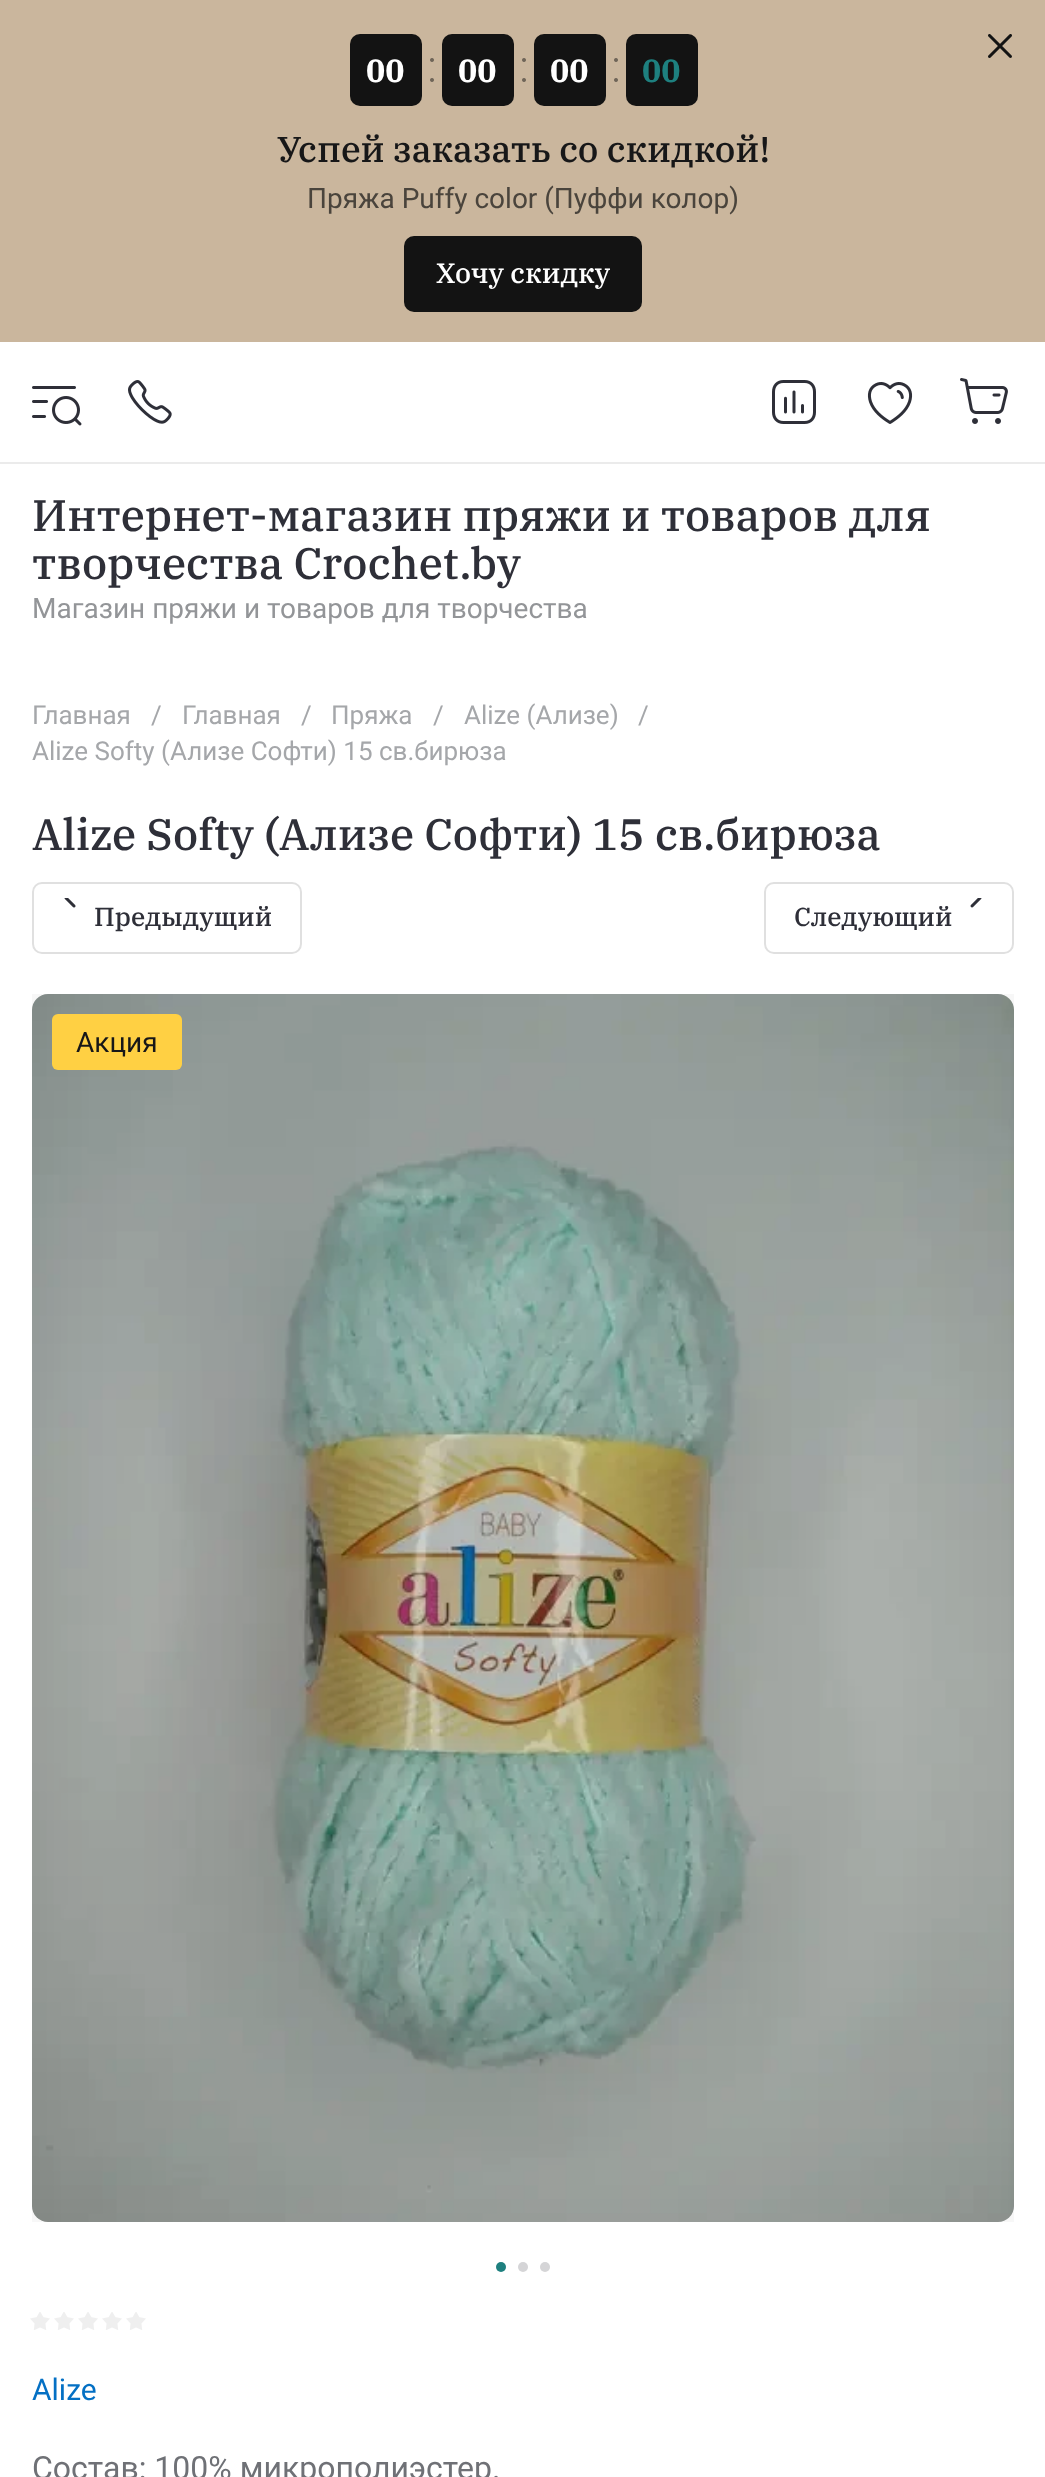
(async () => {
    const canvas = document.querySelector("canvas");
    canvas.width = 1045;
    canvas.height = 2477;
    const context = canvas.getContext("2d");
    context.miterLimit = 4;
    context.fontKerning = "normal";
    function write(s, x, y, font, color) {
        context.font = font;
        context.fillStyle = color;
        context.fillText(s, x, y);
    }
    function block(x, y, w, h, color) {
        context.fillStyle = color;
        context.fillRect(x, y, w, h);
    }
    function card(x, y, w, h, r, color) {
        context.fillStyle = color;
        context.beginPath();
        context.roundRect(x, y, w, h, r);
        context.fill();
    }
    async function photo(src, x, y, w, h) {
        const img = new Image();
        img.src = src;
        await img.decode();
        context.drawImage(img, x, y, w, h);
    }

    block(0, 0, 1045, 2477, "rgb(255, 255, 255)");
    block(0, 0, 1045, 342, "rgb(202, 182, 157)");
    await photo("media/1.png", 988, 34, 24, 24);
    card(350, 34, 72, 72, 10, "rgb(19, 19, 19)");
    write("00", 366, 82, "bold 32px IBM Plex Serif", "rgb(255, 255, 255)");
    await photo("media/2.png", 430, 58, 4, 24);
    card(442, 34, 72, 72, 10, "rgb(19, 19, 19)");
    write("00", 458, 82, "bold 32px IBM Plex Serif", "rgb(255, 255, 255)");
    await photo("media/2.png", 522, 58, 4, 24);
    card(534, 34, 72, 72, 10, "rgb(19, 19, 19)");
    write("00", 550, 82, "bold 32px IBM Plex Serif", "rgb(255, 255, 255)");
    await photo("media/2.png", 614, 58, 4, 24);
    card(626, 34, 72, 72, 10, "rgb(19, 19, 19)");
    write("00", 642, 82, "bold 32px IBM Plex Serif", "rgb(30, 128, 127)");
    write("Успей заказать со скидкой!", 277, 162, "500 36px IBM Plex Serif", "rgb(23, 23, 24)");
    write("Пряжа Puffy color (Пуффи колор)", 307, 208, "28px Roboto", "rgb(74, 68, 60)");
    card(404, 236, 238, 76, 10, "rgb(19, 19, 19)");
    write("Хочу скидку", 436, 283, "500 28px IBM Plex Serif", "rgb(255, 255, 255)");
    block(0, 462, 1045, 2, "rgb(235, 235, 235)");
    await photo("media/3.png", 32, 386, 50, 40);
    await photo("media/4.png", 128, 380, 44, 44);
    await photo("media/5.png", 772, 380, 44, 44);
    await photo("media/6.png", 867, 382, 46, 42);
    await photo("media/7.png", 960, 378, 48, 46);
    write("Интернет-магазин пряжи и товаров для", 32, 531, "500 44px IBM Plex Serif", "rgb(46, 47, 56)");
    write("творчества Crochet.by", 32, 579, "500 44px IBM Plex Serif", "rgb(46, 47, 56)");
    write("Магазин пряжи и товаров для творчества", 32, 618, "28px Roboto", "rgb(147, 149, 152)");
    write("Главная", 32, 724, "26px Roboto", "rgb(165, 167, 170)");
    write("/", 151, 724, "26px Roboto", "rgb(165, 167, 170)");
    write("Главная", 182, 724, "26px Roboto", "rgb(165, 167, 170)");
    write("/", 301, 724, "26px Roboto", "rgb(165, 167, 170)");
    write("Пряжа", 331, 724, "26px Roboto", "rgb(165, 167, 170)");
    write("/", 433, 724, "26px Roboto", "rgb(165, 167, 170)");
    write("Alize (Ализе)", 464, 724, "26px Roboto", "rgb(165, 167, 170)");
    write("/", 638, 724, "26px Roboto", "rgb(165, 167, 170)");
    write("Alize Softy (Ализе Софти) 15 св.бирюза", 32, 760, "26px Roboto", "rgb(165, 167, 170)");
    write("Alize Softy (Ализе Софти) 15 св.бирюза", 32, 850, "500 44px IBM Plex Serif", "rgb(46, 47, 56)");
    context.beginPath();
    context.roundRect(33, 883, 268, 70, 9);
    context.strokeStyle = "rgb(224, 224, 224)";
    context.lineWidth = 2;
    context.stroke();
    await photo("media/8.png", 64, 898, 12, 10);
    write("Предыдущий", 94, 926, "500 26px IBM Plex Serif", "rgb(46, 47, 56)");
    context.beginPath();
    context.roundRect(765, 883, 248, 70, 9);
    context.stroke();
    await photo("media/9.png", 970, 898, 12, 10);
    write("Следующий", 794, 926, "500 26px IBM Plex Serif", "rgb(46, 47, 56)");
    await photo("media/10.png", 32, 994, 982, 1228);
    block(32, 994, 982, 1228, "rgba(0, 0, 0, 0.03)");
    context.fillStyle = "rgb(30, 128, 127)";
    context.beginPath();
    context.arc(501, 2267, 5, 0, Math.PI * 2);
    context.fill();
    context.fillStyle = "rgb(213, 213, 215)";
    context.beginPath();
    context.arc(523, 2267, 5, 0, Math.PI * 2);
    context.fill();
    context.beginPath();
    context.arc(545, 2267, 5, 0, Math.PI * 2);
    context.fill();
    card(52, 1014, 130, 56, 6, "rgb(255, 208, 67)");
    write("Акция", 76, 1052, "28px Roboto", "rgb(23, 23, 24)");
    await photo("media/11.png", 30, 2312, 116, 18);
    write("Alize", 32, 2400, "30px Roboto", "rgb(4, 112, 196)");
    write("Состав: 100% микрополиэстер.", 32, 2479, "32px Roboto", "rgb(111, 113, 118)");
})();
